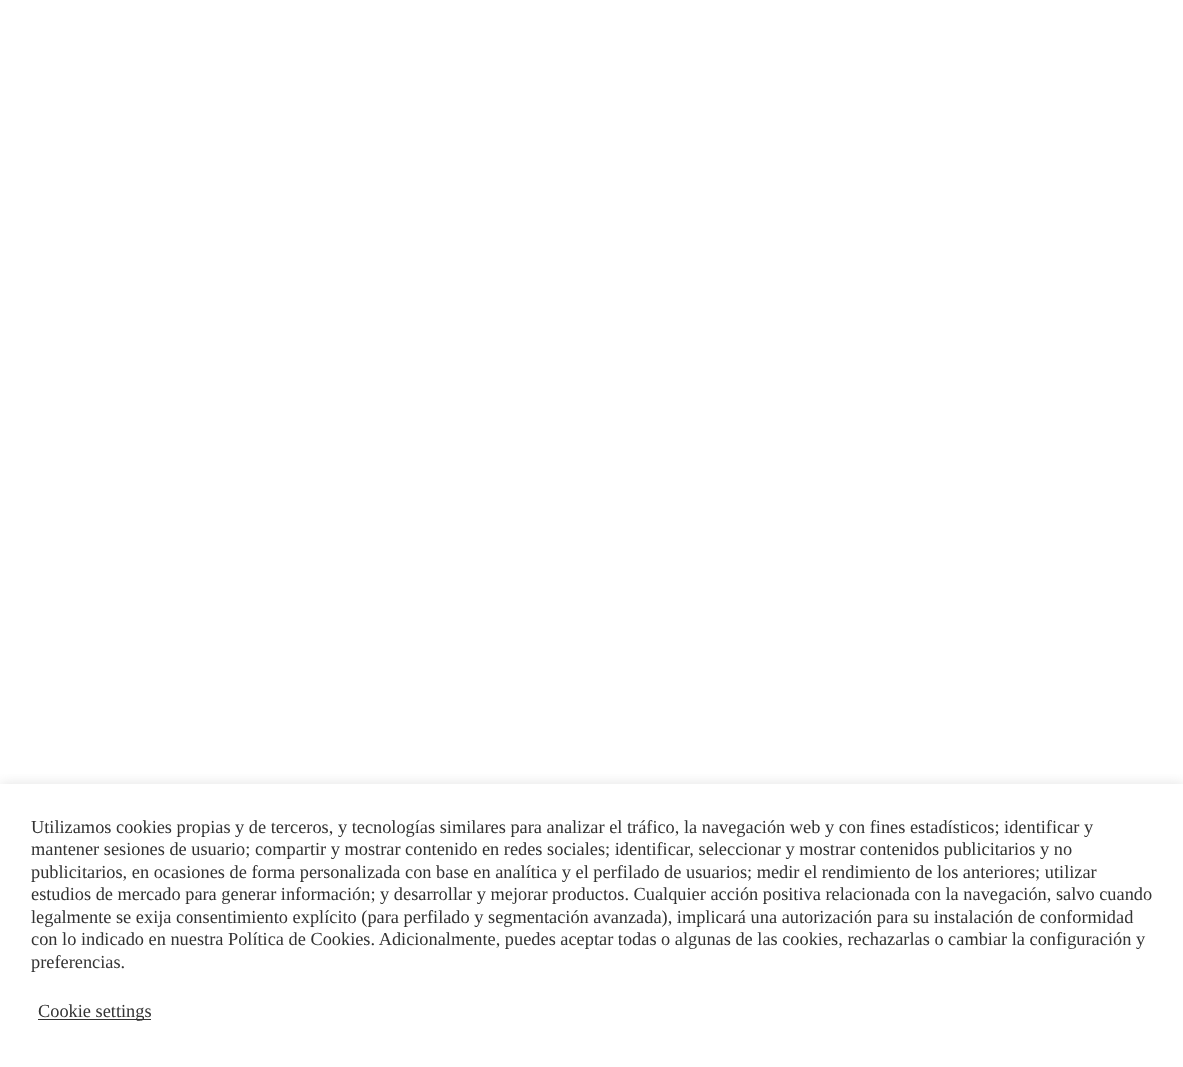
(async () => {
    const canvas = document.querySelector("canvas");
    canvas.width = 1183;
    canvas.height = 1067;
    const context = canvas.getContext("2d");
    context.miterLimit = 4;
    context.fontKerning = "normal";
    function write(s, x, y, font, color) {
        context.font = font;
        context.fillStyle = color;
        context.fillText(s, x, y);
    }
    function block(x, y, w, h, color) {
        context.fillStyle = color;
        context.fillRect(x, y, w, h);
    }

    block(0, 0, 1183, 1067, "rgb(255, 255, 255)");
    context.save();
    context.beginPath();
    context.rect(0, 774, 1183, 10);
    context.clip();
    context.fillStyle = "rgba(172, 171, 171, 0.3)";
    context.filter = "blur(6px)";
    context.beginPath();
    context.rect(0, 783, 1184, 283);
    context.fill();
    context.filter = "none";
    context.restore();
    write("Utilizamos cookies propias y de terceros, y tecnologías similares para analizar el tráfico, la navegación web y con fines estadísticos; identificar y", 31, 833, "18.33px Liberation Serif", "rgb(51, 51, 51)");
    write("mantener sesiones de usuario; compartir y mostrar contenido en redes sociales; identificar, seleccionar y mostrar contenidos publicitarios y no", 31, 855, "18.33px Liberation Serif", "rgb(51, 51, 51)");
    write("publicitarios, en ocasiones de forma personalizada con base en analítica y el perfilado de usuarios; medir el rendimiento de los anteriores; utilizar", 31, 878, "18.33px Liberation Serif", "rgb(51, 51, 51)");
    write("estudios de mercado para generar información; y desarrollar y mejorar productos. Cualquier acción positiva relacionada con la navegación, salvo cuando", 31, 900, "18.33px Liberation Serif", "rgb(51, 51, 51)");
    write("legalmente se exija consentimiento explícito (para perfilado y segmentación avanzada), implicará una autorización para su instalación de conformidad", 31, 923, "18.33px Liberation Serif", "rgb(51, 51, 51)");
    write("con lo indicado en nuestra Política de Cookies. Adicionalmente, puedes aceptar todas o algunas de las cookies, rechazarlas o cambiar la configuración y", 31, 945, "18.33px Liberation Serif", "rgb(51, 51, 51)");
    write("preferencias.", 31, 968, "18.33px Liberation Serif", "rgb(51, 51, 51)");
    block(38, 1019, 113, 1, "rgb(51, 51, 51)");
    write("Cookie settings", 38, 1017, "18.33px Liberation Serif", "rgb(51, 51, 51)");
})();
